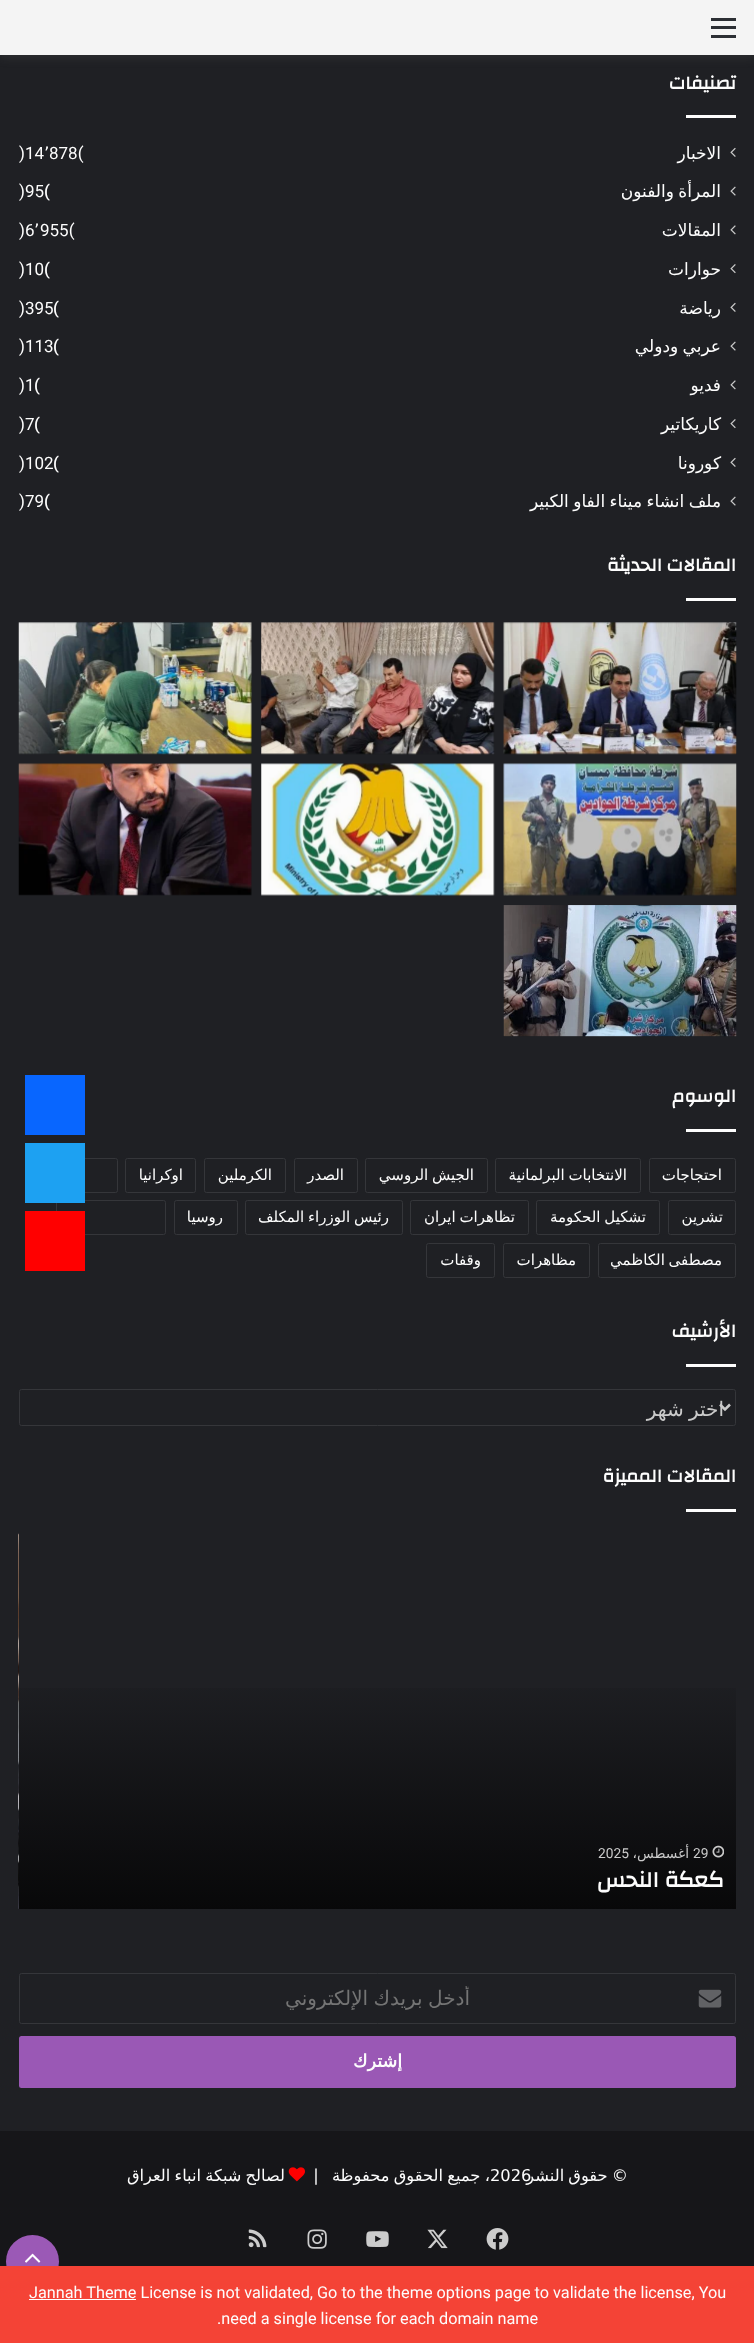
(async () => {
    const canvas = document.querySelector("canvas");
    canvas.width = 754;
    canvas.height = 2343;
    const context = canvas.getContext("2d");
    context.miterLimit = 4;
    context.fontKerning = "normal";
    function write(s, x, y, font, color) {
        context.font = font;
        context.fillStyle = color;
        context.fillText(s, x, y);
    }
    function block(x, y, w, h, color) {
        context.fillStyle = color;
        context.fillRect(x, y, w, h);
    }
    function card(x, y, w, h, r, color) {
        context.fillStyle = color;
        context.beginPath();
        context.roundRect(x, y, w, h, r);
        context.fill();
    }
    async function photo(src, x, y, w, h) {
        const img = new Image();
        img.src = src;
        await img.decode();
        context.drawImage(img, x, y, w, h);
    }
    let gradient;

    block(0, 0, 754, 2343, "rgb(31, 32, 36)");
    context.fillStyle = "rgba(99, 99, 99, 0.2)";
    context.filter = "blur(5px)";
    context.beginPath();
    context.rect(0, 3, 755, 55);
    context.fill();
    context.filter = "none";
    block(0, 0, 754, 55, "rgb(244, 244, 244)");
    block(711, 26, 25, 3, "rgb(44, 47, 52)");
    block(711, 18, 25, 3, "rgb(44, 47, 52)");
    block(711, 35, 25, 3, "rgb(44, 47, 52)");
    context.direction = "rtl";
    write("تصنيفات", 736, 89, "bold 18.75px Changa", "rgb(253, 253, 253)");
    block(686, 115, 50, 3, "rgb(253, 253, 253)");
    await photo("media/1.png", 730, 147, 6, 10);
    write("الاخبار", 721, 159, "17px DejaVu Sans", "rgb(253, 253, 253)");
    context.direction = "ltr";
    write("878(", 49, 159, "17px Roboto", "rgb(253, 253, 253)");
    write("٬", 44, 159, "17px DejaVu Sans", "rgb(253, 253, 253)");
    write(")14", 19, 159, "17px Roboto", "rgb(253, 253, 253)");
    await photo("media/2.png", 730, 186, 6, 10);
    context.wordSpacing = "-1px";
    context.direction = "rtl";
    write("المرأة والفنون", 721, 197, "17px DejaVu Sans", "rgb(253, 253, 253)");
    context.wordSpacing = "0px";
    context.direction = "ltr";
    write("(", 44, 197, "500 17px Roboto", "rgb(253, 253, 253)");
    write(")95", 19, 197, "17px Roboto", "rgb(253, 253, 253)");
    await photo("media/3.png", 730, 225, 6, 10);
    context.direction = "rtl";
    write("المقالات", 721, 236, "17px DejaVu Sans", "rgb(253, 253, 253)");
    context.direction = "ltr";
    write("955(", 40, 236, "17px Roboto", "rgb(253, 253, 253)");
    write("٬", 34, 236, "17px DejaVu Sans", "rgb(253, 253, 253)");
    write(")6", 19, 236, "17px Roboto", "rgb(253, 253, 253)");
    await photo("media/4.png", 730, 264, 6, 10);
    context.direction = "rtl";
    write("حوارات", 721, 275, "17px DejaVu Sans", "rgb(253, 253, 253)");
    context.direction = "ltr";
    write("(", 44, 275, "500 17px Roboto", "rgb(253, 253, 253)");
    write(")10", 19, 275, "17px Roboto", "rgb(253, 253, 253)");
    await photo("media/1.png", 730, 302, 6, 10);
    context.direction = "rtl";
    write("رياضة", 721, 314, "17px DejaVu Sans", "rgb(253, 253, 253)");
    context.direction = "ltr";
    write("(", 53, 314, "500 17px Roboto", "rgb(253, 253, 253)");
    write(")395", 19, 314, "17px Roboto", "rgb(253, 253, 253)");
    await photo("media/2.png", 730, 341, 6, 10);
    context.wordSpacing = "-1px";
    context.direction = "rtl";
    write("عربي ودولي", 721, 352, "17px DejaVu Sans", "rgb(253, 253, 253)");
    context.wordSpacing = "0px";
    context.direction = "ltr";
    write("(", 53, 352, "500 17px Roboto", "rgb(253, 253, 253)");
    write(")113", 19, 352, "17px Roboto", "rgb(253, 253, 253)");
    await photo("media/3.png", 730, 380, 6, 10);
    context.direction = "rtl";
    write("فديو", 721, 391, "17px DejaVu Sans", "rgb(253, 253, 253)");
    context.direction = "ltr";
    write("(", 34, 391, "500 17px Roboto", "rgb(253, 253, 253)");
    write(")1", 19, 391, "17px Roboto", "rgb(253, 253, 253)");
    await photo("media/4.png", 730, 419, 6, 10);
    context.direction = "rtl";
    write("كاريكاتير", 721, 430, "17px DejaVu Sans", "rgb(253, 253, 253)");
    context.direction = "ltr";
    write("(", 34, 430, "500 17px Roboto", "rgb(253, 253, 253)");
    write(")7", 19, 430, "17px Roboto", "rgb(253, 253, 253)");
    await photo("media/1.png", 730, 457, 6, 10);
    context.direction = "rtl";
    write("كورونا", 721, 469, "17px DejaVu Sans", "rgb(253, 253, 253)");
    context.direction = "ltr";
    write("(", 53, 469, "500 17px Roboto", "rgb(253, 253, 253)");
    write(")102", 19, 469, "17px Roboto", "rgb(253, 253, 253)");
    await photo("media/2.png", 730, 496, 6, 10);
    context.wordSpacing = "-1px";
    context.direction = "rtl";
    write("ملف انشاء ميناء الفاو الكبير", 721, 507, "17px DejaVu Sans", "rgb(253, 253, 253)");
    context.wordSpacing = "0px";
    context.direction = "ltr";
    write("(", 44, 507, "500 17px Roboto", "rgb(253, 253, 253)");
    write(")79", 19, 507, "17px Roboto", "rgb(253, 253, 253)");
    context.direction = "rtl";
    write("المقالات الحديثة", 736, 571, "bold 18.75px Changa", "rgb(253, 253, 253)");
    block(686, 598, 50, 3, "rgb(253, 253, 253)");
    await photo("media/5.png", 503, 622, 234, 133);
    await photo("media/6.png", 261, 622, 234, 133);
    await photo("media/7.png", 18, 622, 234, 133);
    await photo("media/8.png", 503, 763, 234, 133);
    await photo("media/9.png", 261, 763, 234, 133);
    await photo("media/10.png", 18, 763, 234, 133);
    await photo("media/11.png", 503, 905, 234, 132);
    write("الوسوم", 736, 1102, "bold 18.75px Changa", "rgb(253, 253, 253)");
    block(686, 1129, 50, 3, "rgb(253, 253, 253)");
    context.beginPath();
    context.roundRect(649.5, 1158.5, 86, 34, 2);
    context.strokeStyle = "rgb(53, 54, 58)";
    context.stroke();
    write("احتجاجات", 722, 1180, "15px DejaVu Sans", "rgb(253, 253, 253)");
    context.beginPath();
    context.roundRect(495.5, 1158.5, 145, 34, 2);
    context.stroke();
    context.wordSpacing = "-1px";
    write("الانتخابات البرلمانية", 627, 1180, "15px DejaVu Sans", "rgb(253, 253, 253)");
    context.beginPath();
    context.roundRect(365.5, 1158.5, 122, 34, 2);
    context.stroke();
    write("الجيش الروسي", 474, 1180, "15px DejaVu Sans", "rgb(253, 253, 253)");
    context.beginPath();
    context.roundRect(294.5, 1158.5, 63, 34, 2);
    context.stroke();
    context.wordSpacing = "0px";
    write("الصدر", 344, 1180, "15px DejaVu Sans", "rgb(253, 253, 253)");
    context.beginPath();
    context.roundRect(204.5, 1158.5, 81, 34, 2);
    context.stroke();
    write("الكرملين", 272, 1180, "15px DejaVu Sans", "rgb(253, 253, 253)");
    context.beginPath();
    context.roundRect(125.5, 1158.5, 70, 34, 2);
    context.stroke();
    write("اوكرانيا", 183, 1180, "15px DejaVu Sans", "rgb(253, 253, 253)");
    context.beginPath();
    context.roundRect(58.5, 1158.5, 59, 34, 2);
    context.stroke();
    context.beginPath();
    context.roundRect(668.5, 1200.5, 67, 34, 2);
    context.stroke();
    write("تشرين", 723, 1222, "15px DejaVu Sans", "rgb(253, 253, 253)");
    context.beginPath();
    context.roundRect(536.5, 1200.5, 123, 34, 2);
    context.stroke();
    context.wordSpacing = "-1px";
    write("تشكيل الحكومة", 646, 1222, "15px DejaVu Sans", "rgb(253, 253, 253)");
    context.beginPath();
    context.roundRect(410.5, 1200.5, 118, 34, 2);
    context.stroke();
    write("تظاهرات ايران", 515, 1222, "15px DejaVu Sans", "rgb(253, 253, 253)");
    context.beginPath();
    context.roundRect(245.5, 1200.5, 157, 34, 2);
    context.stroke();
    write("رئيس الوزراء المكلف", 389, 1222, "15px DejaVu Sans", "rgb(253, 253, 253)");
    context.beginPath();
    context.roundRect(174.5, 1200.5, 63, 34, 2);
    context.stroke();
    context.wordSpacing = "0px";
    write("روسيا", 223, 1222, "15px DejaVu Sans", "rgb(253, 253, 253)");
    context.beginPath();
    context.roundRect(56.5, 1200.5, 109, 34, 2);
    context.stroke();
    context.beginPath();
    context.roundRect(598.5, 1243.5, 137, 34, 2);
    context.stroke();
    context.wordSpacing = "-1px";
    write("مصطفى الكاظمي", 722, 1265, "15px DejaVu Sans", "rgb(253, 253, 253)");
    context.beginPath();
    context.roundRect(503.5, 1243.5, 86, 34, 2);
    context.stroke();
    context.wordSpacing = "0px";
    write("مظاهرات", 576, 1265, "15px DejaVu Sans", "rgb(253, 253, 253)");
    context.beginPath();
    context.roundRect(426.5, 1243.5, 68, 34, 2);
    context.stroke();
    write("وقفات", 481, 1265, "15px DejaVu Sans", "rgb(253, 253, 253)");
    write("الأرشيف", 736, 1337, "bold 18.75px Changa", "rgb(253, 253, 253)");
    block(686, 1364, 50, 3, "rgb(253, 253, 253)");
    context.beginPath();
    context.roundRect(19.5, 1389.5, 716, 36, 2);
    context.stroke();
    context.beginPath();
    context.moveTo(720, 1404.5);
    context.lineTo(725, 1409.5);
    context.lineTo(730, 1404.5);
    context.strokeStyle = "rgb(202, 202, 202)";
    context.lineWidth = 2.5;
    context.stroke();
    context.wordSpacing = "-1px";
    write("اختر شهر", 724, 1416, "20px DejaVu Sans", "rgb(202, 202, 202)");
    context.wordSpacing = "0px";
    write("المقالات المميزة", 736, 1482, "bold 18.75px Changa", "rgb(253, 253, 253)");
    block(686, 1509, 50, 3, "rgb(253, 253, 253)");
    gradient = context.createLinearGradient(378, 1665, 378, 1909);
    gradient.addColorStop(0, "rgb(31, 32, 36)");
    gradient.addColorStop(1, "rgb(8, 8, 9)");
    context.fillStyle = gradient;
    context.fillRect(19, 1688, 717, 221);
    await photo("media/12.png", 712, 1845, 12, 13);
    context.direction = "ltr";
    write("29", 693, 1858, "13.75px Roboto", "rgb(202, 202, 202)");
    context.direction = "rtl";
    write("أغسطس،", 689, 1858, "13.75px DejaVu Sans", "rgb(202, 202, 202)");
    context.direction = "ltr";
    write("2025", 598, 1858, "13.75px Roboto", "rgb(202, 202, 202)");
    context.direction = "rtl";
    write("كعكة النحس", 724, 1887, "bold 22.5px Changa", "rgb(253, 253, 253)");
    await photo("media/13.png", 18, 1533, 1, 376);
    context.beginPath();
    context.roundRect(19.5, 1973.5, 716, 50, 2);
    context.strokeStyle = "rgb(53, 54, 58)";
    context.lineWidth = 1;
    context.stroke();
    await photo("media/14.png", 698, 1989, 24, 19);
    context.save();
    context.beginPath();
    context.rect(58, 1986, 640, 24);
    context.clip();
    context.wordSpacing = "-1px";
    write("أدخل بريدك الإلكتروني", 470, 2005, "20px DejaVu Sans", "rgb(116, 116, 116)");
    context.restore();
    card(19, 2036, 717, 52, 2.5, "rgb(154, 88, 181)");
    write("إشترك", 402, 2067, "bold 17.5px DejaVu Sans", "rgb(253, 253, 253)");
    block(0, 2131, 754, 135, "rgb(22, 22, 25)");
    context.wordSpacing = "-0.75px";
    write("، جميع الحقوق محفوظة   |", 490, 2181, "16.25px DejaVu Sans", "rgb(253, 253, 253)");
    context.wordSpacing = "0px";
    context.direction = "ltr";
    write("2026", 490, 2181, "16.25px DejaVu Sans", "rgb(253, 253, 253)");
    context.wordSpacing = "-1px";
    context.direction = "rtl";
    write("© حقوق النشر", 628, 2181, "16.25px DejaVu Sans", "rgb(253, 253, 253)");
    await photo("media/15.png", 288, 2167, 17, 15);
    write("لصالح شبكة انباء العراق", 285, 2181, "16.25px DejaVu Sans", "rgb(253, 253, 253)");
    await photo("media/16.png", 486, 2228, 23, 22);
    await photo("media/17.png", 427, 2229, 21, 20);
    await photo("media/18.png", 366, 2231, 23, 16);
    await photo("media/19.png", 307, 2229, 20, 20);
    await photo("media/20.png", 248, 2229, 19, 19);
    context.fillStyle = "rgb(155, 89, 182)";
    context.beginPath();
    context.arc(32.5, 2261.5, 26.5, 0, Math.PI * 2);
    context.fill();
    await photo("media/21.png", 25, 2253, 16, 10);
    block(0, 2266, 754, 77, "rgb(244, 67, 54)");
    block(29, 2299, 107, 1, "rgb(255, 255, 255)");
    context.wordSpacing = "0px";
    context.direction = "ltr";
    write("Jannah Theme License is not validated, Go to the theme options page to validate the license, You", 29, 2298, "16.25px Roboto", "rgb(253, 253, 253)");
    write(".need a single license for each domain name", 217, 2324, "16.25px Roboto", "rgb(253, 253, 253)");
    block(25, 1075, 60, 60, "rgb(8, 102, 255)");
    block(25, 1143, 60, 60, "rgb(29, 161, 242)");
    block(25, 1211, 60, 60, "rgb(255, 0, 0)");
})();
